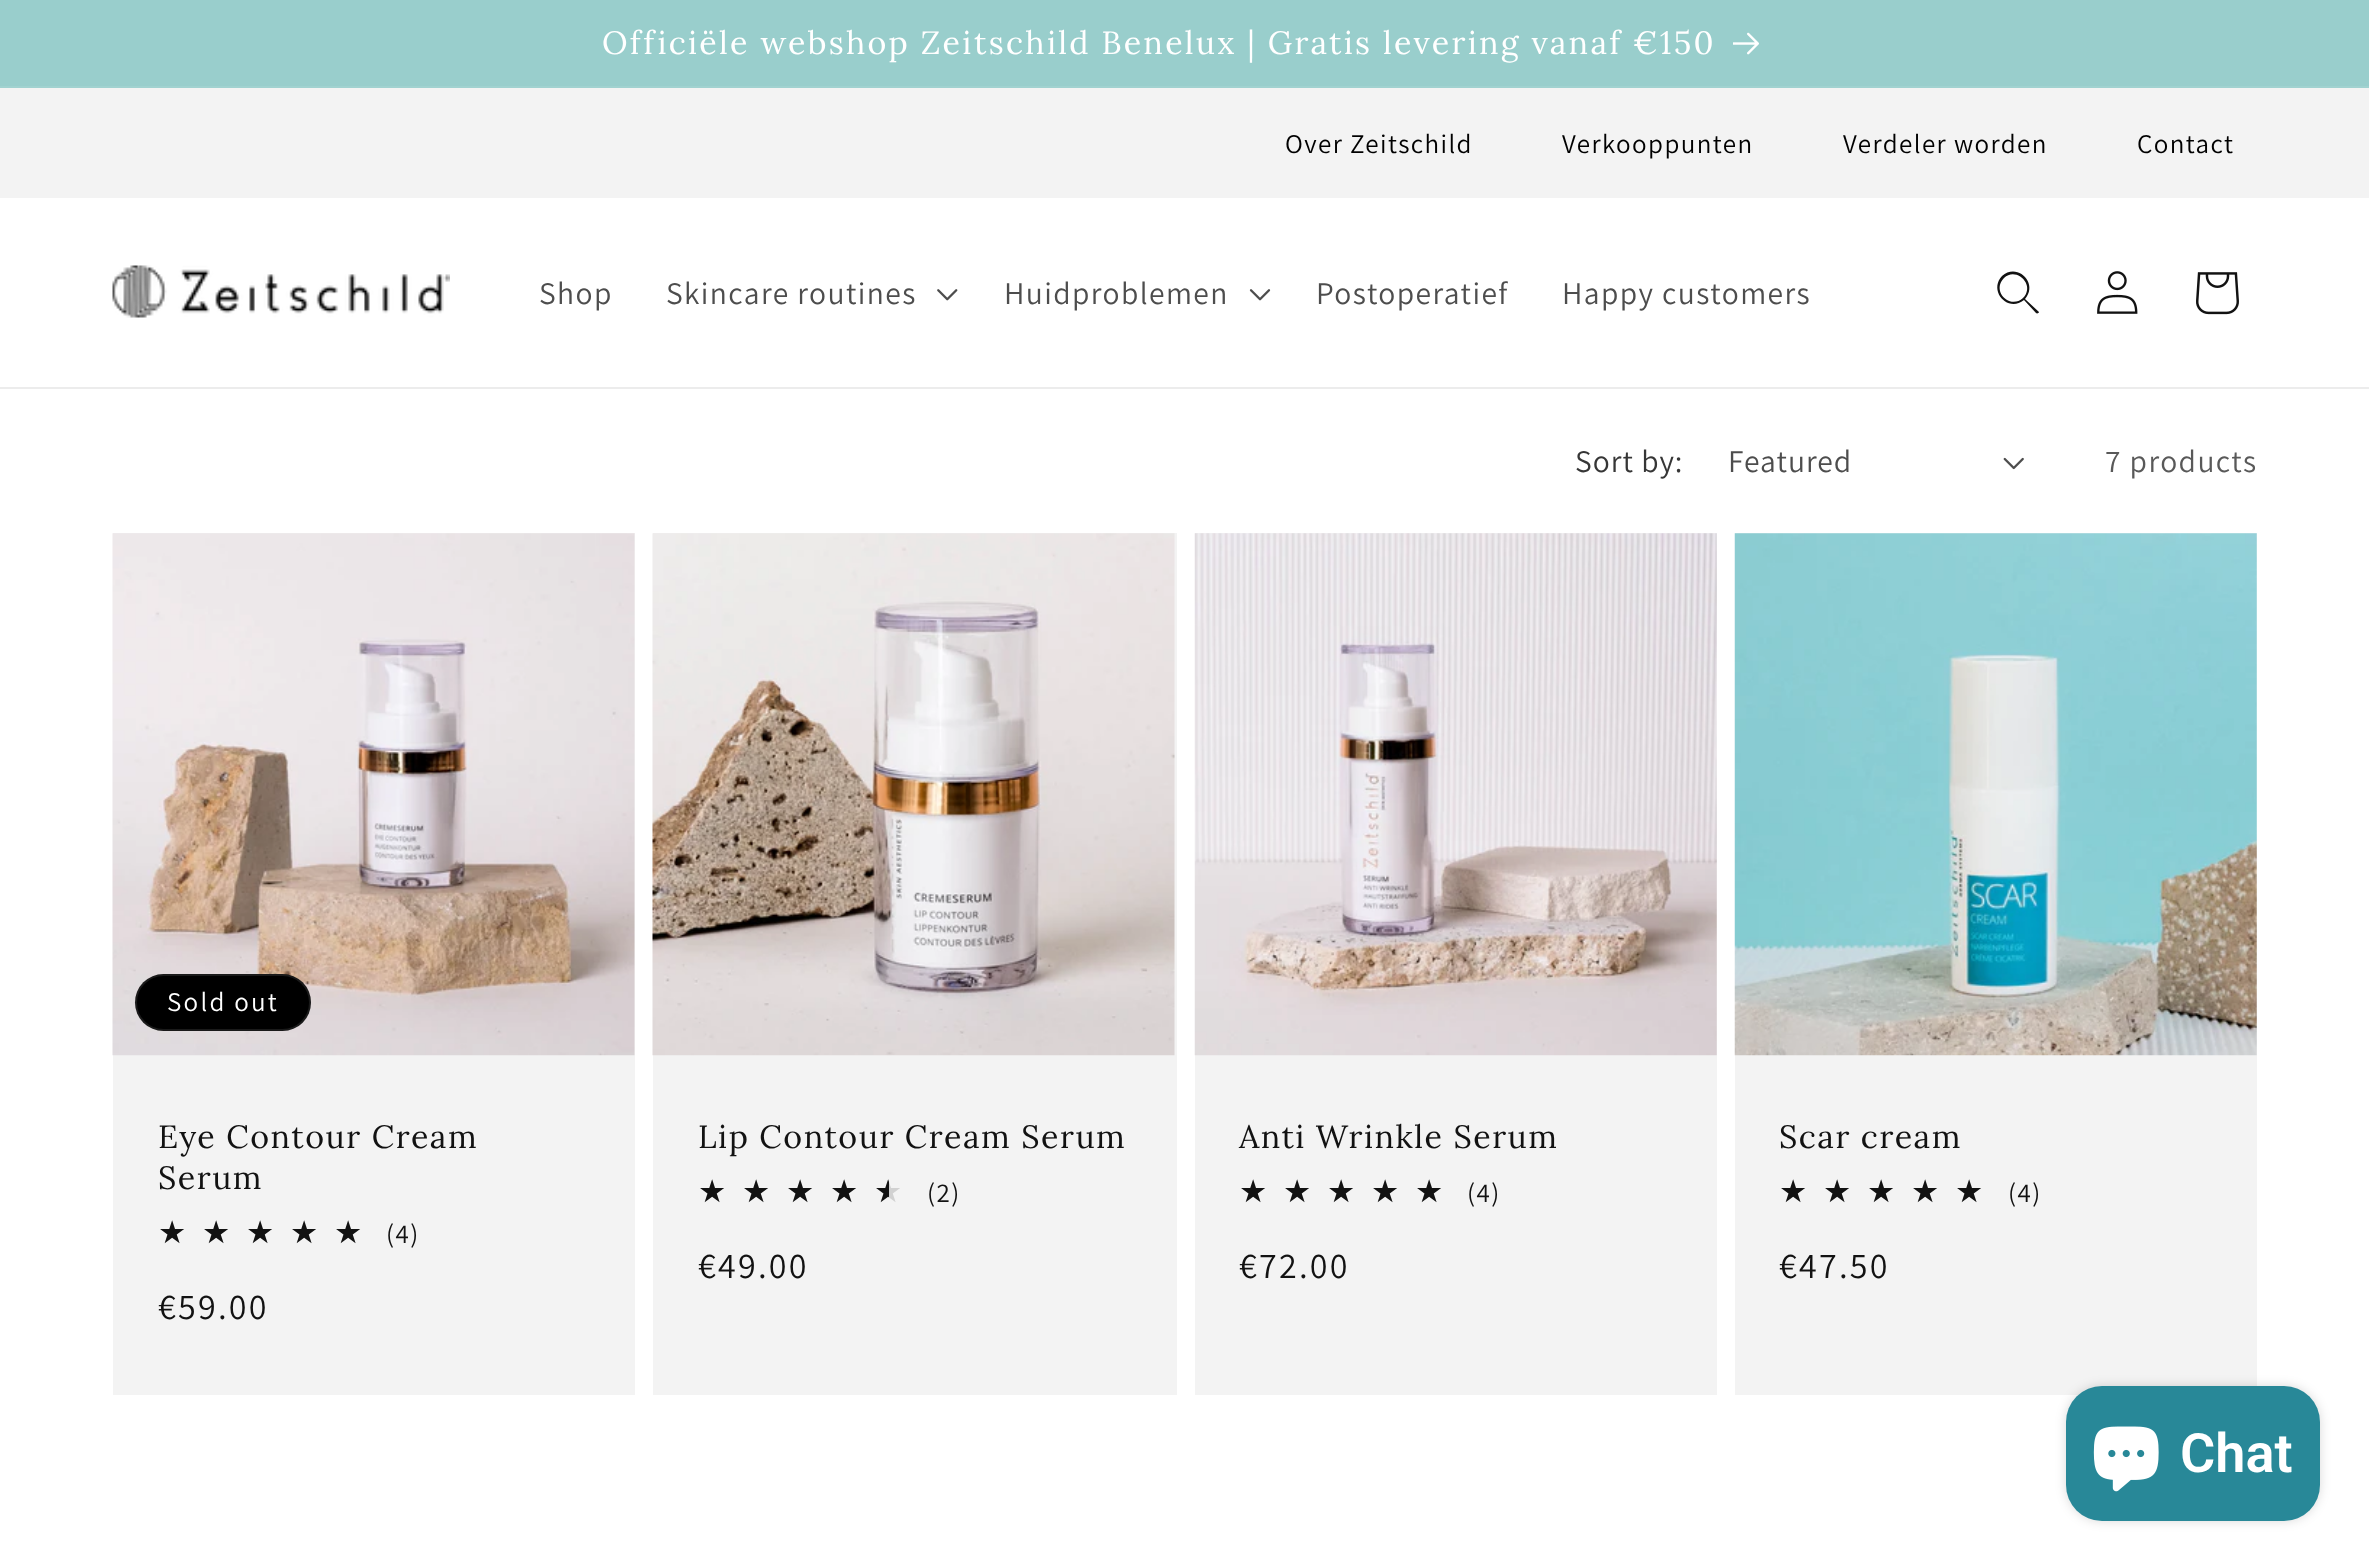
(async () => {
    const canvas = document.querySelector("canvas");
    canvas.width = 2369;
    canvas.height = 1568;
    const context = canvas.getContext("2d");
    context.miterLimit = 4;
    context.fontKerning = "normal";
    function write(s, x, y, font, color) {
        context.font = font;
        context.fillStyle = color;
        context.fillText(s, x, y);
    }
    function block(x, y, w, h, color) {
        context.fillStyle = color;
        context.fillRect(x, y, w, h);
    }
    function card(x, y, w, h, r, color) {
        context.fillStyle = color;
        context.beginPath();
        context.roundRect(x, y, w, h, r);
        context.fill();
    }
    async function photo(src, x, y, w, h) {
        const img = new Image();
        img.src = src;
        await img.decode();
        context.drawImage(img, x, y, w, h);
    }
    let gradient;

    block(0, 0, 2369, 1568, "rgb(255, 255, 255)");
    block(0, 0, 2369, 86, "rgb(153, 206, 204)");
    block(0, 86, 2369, 2, "rgb(161, 210, 208)");
    context.letterSpacing = "2.25px";
    write("Officiële webshop Zeitschild Benelux | Gratis levering vanaf €150", 602, 54, "32.2px Lora", "rgb(255, 255, 255)");
    await photo("media/1.png", 1733, 32, 26, 23);
    block(0, 88, 2369, 110, "rgb(243, 243, 243)");
    context.letterSpacing = "1.4px";
    write("Over Zeitschild", 1285, 153, "27px Assistant", "rgb(0, 0, 0)");
    write("Verkooppunten", 1562, 153, "27px Assistant", "rgb(0, 0, 0)");
    write("Verdeler worden", 1843, 153, "27px Assistant", "rgb(0, 0, 0)");
    write("Contact", 2137, 153, "27px Assistant", "rgb(0, 0, 0)");
    block(0, 387, 2369, 2, "rgb(236, 236, 236)");
    await photo("media/2.png", 112, 265, 338, 53);
    write("Shop", 539, 304, "31.5px Assistant", "rgb(77, 77, 77)");
    write("Skincare routines", 666, 304, "31.5px Assistant", "rgb(77, 77, 77)");
    await photo("media/3.png", 937, 289, 21, 12);
    write("Huidproblemen", 1004, 304, "31.5px Assistant", "rgb(77, 77, 77)");
    await photo("media/4.png", 1249, 289, 22, 12);
    write("Postoperatief", 1316, 304, "31.5px Assistant", "rgb(77, 77, 77)");
    write("Happy customers", 1562, 304, "31.5px Assistant", "rgb(77, 77, 77)");
    context.fillStyle = "rgb(18, 18, 18)";
    context.beginPath();
    context.moveTo(2023, 298);
    context.bezierCurveTo(2010, 310, 1991, 291, 2004, 278);
    context.bezierCurveTo(2016, 266, 2036, 285, 2023, 298);
    context.moveTo(2024, 300);
    context.bezierCurveTo(2008, 313, 1988, 291, 2002, 276);
    context.bezierCurveTo(2017, 262, 2039, 283, 2025, 299);
    context.lineTo(2039, 312);
    context.bezierCurveTo(2039, 313, 2037, 314, 2036, 313);
    context.closePath();
    context.fill("evenodd");
    await photo("media/5.png", 2097, 271, 41, 43);
    await photo("media/6.png", 2196, 272, 43, 43);
    context.letterSpacing = "1px";
    write("Sort by:", 1575, 472, "31.5px Assistant", "rgb(54, 54, 54)");
    write("Featured", 1728, 472, "31.5px Assistant", "rgb(77, 77, 77)");
    await photo("media/7.png", 2003, 457, 21, 13);
    context.letterSpacing = "1.4px";
    write("7 products", 2105, 472, "31.5px Assistant", "rgb(89, 89, 89)");
    block(113, 533, 522, 862, "rgb(243, 243, 243)");
    await photo("media/8.png", 112, 533, 523, 523);
    card(135, 974, 176, 57, 28.5, "rgb(0, 0, 0)");
    context.beginPath();
    context.roundRect(136, 975, 174, 55, 27.5);
    context.strokeStyle = "rgba(255, 255, 255, 0.1)";
    context.lineWidth = 2;
    context.stroke();
    context.letterSpacing = "2.25px";
    write("Sold out", 167, 1011, "27px Assistant", "rgb(255, 255, 255)");
    context.letterSpacing = "1.5px";
    write("Eye Contour Cream", 158, 1148, "32.2px Lora", "rgb(18, 18, 18)");
    write("Serum", 158, 1189, "32.2px Lora", "rgb(18, 18, 18)");
    context.letterSpacing = "15.75px";
    context.font = "31.5px DejaVu Sans";
    gradient = context.createLinearGradient(158, 1233, 377, 1233);
    gradient.addColorStop(1, "rgb(18, 18, 18)");
    gradient.addColorStop(1, "rgb(209, 209, 209)");
    context.fillStyle = gradient;
    context.fillText("★★★★★", 158, 1243);
    context.letterSpacing = "1.5px";
    write("(4)", 386, 1243, "27px Assistant", "rgb(18, 18, 18)");
    context.letterSpacing = "2.25px";
    write("€59.00", 158, 1319, "36px Assistant", "rgb(18, 18, 18)");
    block(653, 533, 524, 862, "rgb(243, 243, 243)");
    await photo("media/9.png", 652, 533, 523, 523);
    context.letterSpacing = "1.5px";
    write("Lip Contour Cream Serum", 698, 1148, "32.2px Lora", "rgb(18, 18, 18)");
    context.letterSpacing = "15.75px";
    context.font = "31.5px DejaVu Sans";
    gradient = context.createLinearGradient(698, 1192, 918, 1192);
    gradient.addColorStop(0.87, "rgb(18, 18, 18)");
    gradient.addColorStop(0.87, "rgb(209, 209, 209)");
    context.fillStyle = gradient;
    context.fillText("★★★★★", 698, 1202);
    context.letterSpacing = "1.5px";
    write("(2)", 927, 1202, "27px Assistant", "rgb(18, 18, 18)");
    context.letterSpacing = "2.25px";
    write("€49.00", 698, 1278, "36px Assistant", "rgb(18, 18, 18)");
    block(1195, 533, 522, 862, "rgb(243, 243, 243)");
    await photo("media/10.png", 1194, 533, 523, 523);
    context.letterSpacing = "1.5px";
    write("Anti Wrinkle Serum", 1239, 1148, "32.2px Lora", "rgb(18, 18, 18)");
    context.letterSpacing = "15.75px";
    context.font = "31.5px DejaVu Sans";
    gradient = context.createLinearGradient(1239, 1192, 1459, 1192);
    gradient.addColorStop(1, "rgb(18, 18, 18)");
    gradient.addColorStop(1, "rgb(209, 209, 209)");
    context.fillStyle = gradient;
    context.fillText("★★★★★", 1239, 1202);
    context.letterSpacing = "1.5px";
    write("(4)", 1467, 1202, "27px Assistant", "rgb(18, 18, 18)");
    context.letterSpacing = "2.25px";
    write("€72.00", 1239, 1278, "36px Assistant", "rgb(18, 18, 18)");
    block(1735, 533, 522, 862, "rgb(243, 243, 243)");
    await photo("media/11.png", 1734, 533, 523, 523);
    context.letterSpacing = "1.5px";
    write("Scar cream", 1779, 1148, "32.2px Lora", "rgb(18, 18, 18)");
    context.letterSpacing = "15.75px";
    context.font = "31.5px DejaVu Sans";
    gradient = context.createLinearGradient(1779, 1192, 1999, 1192);
    gradient.addColorStop(1, "rgb(18, 18, 18)");
    gradient.addColorStop(1, "rgb(209, 209, 209)");
    context.fillStyle = gradient;
    context.fillText("★★★★★", 1779, 1202);
    context.letterSpacing = "1.5px";
    write("(4)", 2008, 1202, "27px Assistant", "rgb(18, 18, 18)");
    context.letterSpacing = "2.25px";
    write("€47.50", 1779, 1278, "36px Assistant", "rgb(18, 18, 18)");
    context.fillStyle = "rgba(0, 0, 0, 0.15)";
    context.filter = "blur(5.5px)";
    context.beginPath();
    context.roundRect(2066, 1386, 254, 135, 36);
    context.fill();
    context.filter = "none";
    card(2066, 1386, 254, 135, 36, "rgb(40, 136, 152)");
    await photo("media/12.png", 2093, 1426, 66, 66);
    context.letterSpacing = "0px";
    write("Chat", 2180, 1472, "600 54px Roboto", "rgb(255, 255, 255)");
})();
